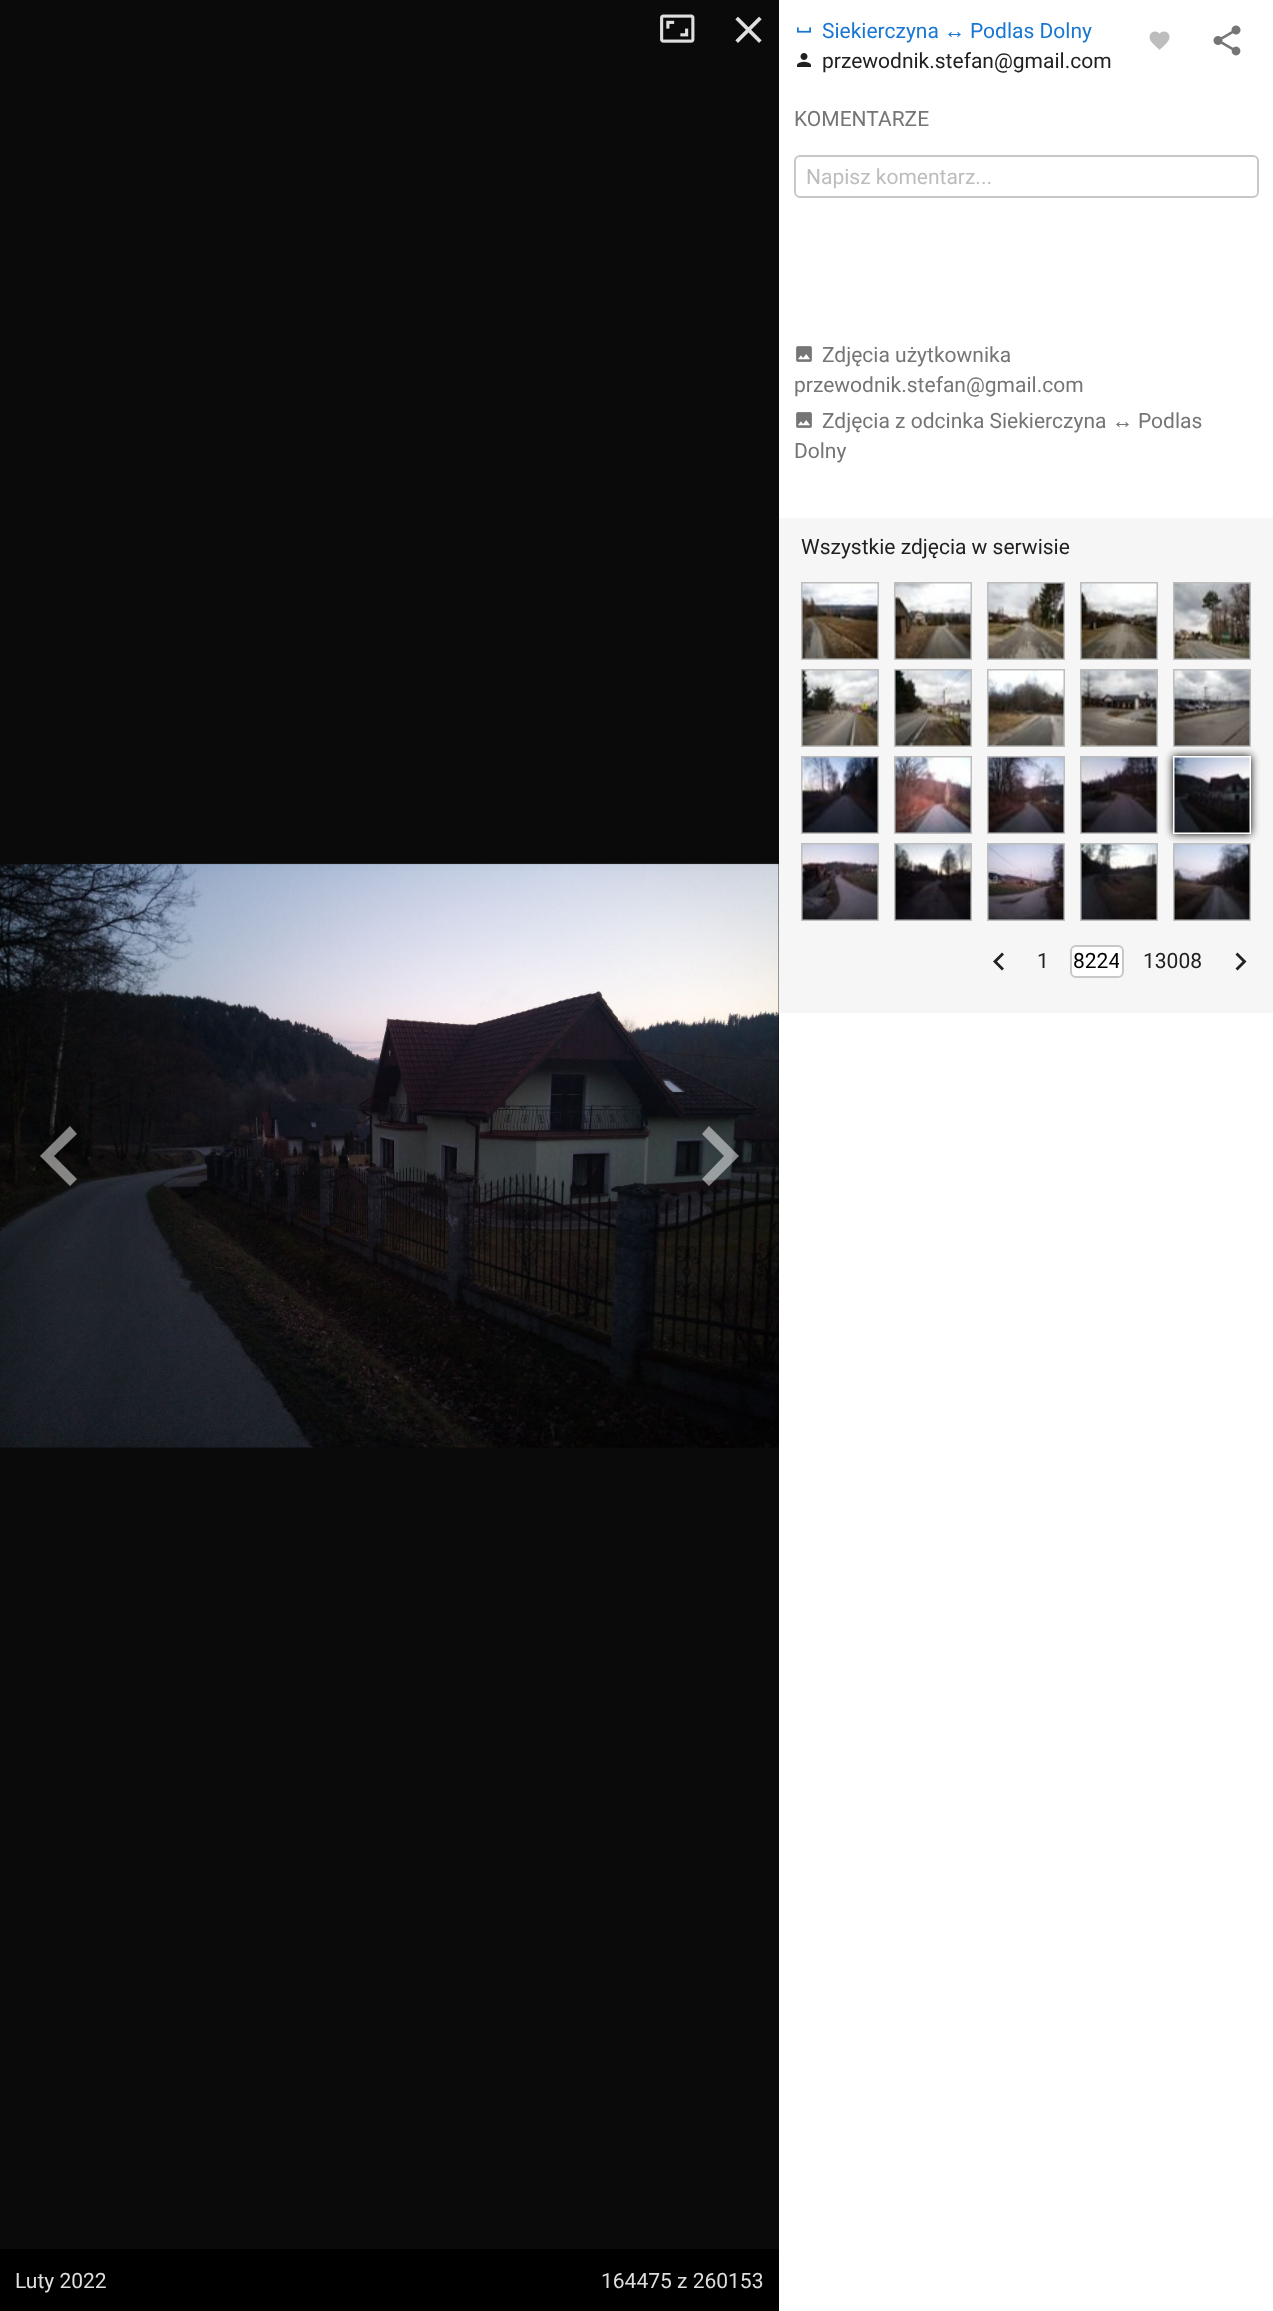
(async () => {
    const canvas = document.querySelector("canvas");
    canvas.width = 1273;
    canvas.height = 2311;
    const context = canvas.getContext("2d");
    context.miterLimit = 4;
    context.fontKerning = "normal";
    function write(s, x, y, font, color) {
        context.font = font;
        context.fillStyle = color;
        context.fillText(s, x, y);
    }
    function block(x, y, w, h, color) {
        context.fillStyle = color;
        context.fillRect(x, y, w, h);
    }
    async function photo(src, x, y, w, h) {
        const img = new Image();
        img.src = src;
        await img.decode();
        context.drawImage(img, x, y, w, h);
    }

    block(0, 0, 1273, 2311, "rgb(10, 10, 10)");
    block(779, 0, 494, 2311, "rgb(255, 255, 255)");
    await photo("media/1.png", 797, 27, 14, 6);
    write("Siekierczyna", 822, 38, "21px Roboto", "rgb(25, 118, 210)");
    write("Podlas Dolny", 970, 38, "21px Roboto", "rgb(25, 118, 210)");
    write("↔", 944, 38, "21px Liberation Sans", "rgb(25, 118, 210)");
    await photo("media/2.png", 797, 53, 14, 14);
    write("przewodnik.stefan@gmail.com", 822, 68, "21px Roboto", "rgb(33, 33, 33)");
    await photo("media/3.png", 1149, 31, 21, 19);
    await photo("media/4.png", 1213, 25, 28, 31);
    write("KOMENTARZE", 794, 126, "21px Roboto", "rgb(117, 117, 117)");
    context.beginPath();
    context.roundRect(795, 156, 463, 41, 5);
    context.strokeStyle = "rgb(200, 200, 200)";
    context.lineWidth = 2;
    context.stroke();
    write("Napisz komentarz...", 806, 184, "21px Roboto", "rgb(189, 189, 189)");
    await photo("media/5.png", 796, 346, 16, 16);
    write("Zdjęcia użytkownika", 822, 362, "21px Roboto", "rgb(117, 117, 117)");
    write("przewodnik.stefan@gmail.com", 794, 392, "21px Roboto", "rgb(117, 117, 117)");
    await photo("media/5.png", 796, 412, 16, 16);
    write("Zdjęcia z odcinka Siekierczyna", 822, 428, "21px Roboto", "rgb(117, 117, 117)");
    write("↔", 1112, 428, "21px Liberation Sans", "rgb(117, 117, 117)");
    write("Podlas", 1138, 428, "21px Roboto", "rgb(117, 117, 117)");
    write("Dolny", 794, 458, "21px Roboto", "rgb(117, 117, 117)");
    block(779, 518, 494, 495, "rgb(246, 246, 246)");
    write("Wszystkie zdjęcia w serwisie", 801, 554, "21px Roboto", "rgb(33, 33, 33)");
    context.strokeStyle = "rgb(189, 189, 189)";
    context.strokeRect(802, 583, 76, 76);
    await photo("media/6.png", 802, 583, 76, 76);
    context.strokeRect(895, 583, 76, 76);
    await photo("media/7.png", 895, 583, 76, 76);
    context.strokeRect(988, 583, 76, 76);
    await photo("media/8.png", 988, 583, 76, 76);
    context.strokeRect(1081, 583, 76, 76);
    await photo("media/9.png", 1081, 583, 76, 76);
    context.strokeRect(1174, 583, 76, 76);
    await photo("media/10.png", 1174, 583, 76, 76);
    context.strokeRect(802, 670, 76, 76);
    await photo("media/11.png", 802, 670, 76, 76);
    context.strokeRect(895, 670, 76, 76);
    await photo("media/12.png", 895, 670, 76, 76);
    context.strokeRect(988, 670, 76, 76);
    await photo("media/13.png", 988, 670, 76, 76);
    context.strokeRect(1081, 670, 76, 76);
    await photo("media/14.png", 1081, 670, 76, 76);
    context.strokeRect(1174, 670, 76, 76);
    await photo("media/15.png", 1174, 670, 76, 76);
    context.strokeRect(802, 757, 76, 76);
    await photo("media/16.png", 802, 757, 76, 76);
    context.strokeRect(895, 757, 76, 76);
    await photo("media/17.png", 895, 757, 76, 76);
    context.strokeRect(988, 757, 76, 76);
    await photo("media/18.png", 988, 757, 76, 76);
    context.strokeRect(1081, 757, 76, 76);
    await photo("media/19.png", 1081, 757, 76, 76);
    context.fillStyle = "rgb(0, 0, 0)";
    context.filter = "blur(4px)";
    context.beginPath();
    context.rect(1173, 756, 78, 78);
    context.fill();
    context.filter = "none";
    context.strokeStyle = "rgb(255, 255, 255)";
    context.strokeRect(1174, 757, 76, 76);
    await photo("media/20.png", 1174, 757, 76, 76);
    context.strokeStyle = "rgb(189, 189, 189)";
    context.strokeRect(802, 844, 76, 76);
    await photo("media/21.png", 802, 844, 76, 76);
    context.strokeRect(895, 844, 76, 76);
    await photo("media/22.png", 895, 844, 76, 76);
    context.strokeRect(988, 844, 76, 76);
    await photo("media/23.png", 988, 844, 76, 76);
    context.strokeRect(1081, 844, 76, 76);
    await photo("media/24.png", 1081, 844, 76, 76);
    context.strokeRect(1174, 844, 76, 76);
    await photo("media/25.png", 1174, 844, 76, 76);
    context.fillStyle = "rgb(33, 33, 33)";
    context.beginPath();
    context.moveTo(1004, 968.5);
    context.lineTo(1002, 970.5);
    context.lineTo(993, 961.5);
    context.lineTo(1002, 952.5);
    context.lineTo(1004, 954.5);
    context.lineTo(997, 961.5);
    context.closePath();
    context.fill();
    write("1", 1037, 968, "21px Roboto", "rgb(33, 33, 33)");
    context.fillStyle = "rgb(255, 255, 255)";
    context.beginPath();
    context.roundRect(1071, 946, 52, 31, 5);
    context.fill();
    context.strokeStyle = "rgb(200, 200, 200)";
    context.stroke();
    context.save();
    context.beginPath();
    context.rect(1074, 950, 45, 24);
    context.clip();
    write("8224", 1073, 968, "21px Roboto", "rgb(0, 0, 0)");
    context.restore();
    write("13008", 1143, 968, "21px Roboto", "rgb(33, 33, 33)");
    context.beginPath();
    context.moveTo(1235.5, 968.5);
    context.lineTo(1242.5, 961.5);
    context.lineTo(1235.5, 954.5);
    context.lineTo(1237.5, 952.5);
    context.lineTo(1246.5, 961.5);
    context.lineTo(1237.5, 970.5);
    context.closePath();
    context.fill();
    await photo("media/26.png", 660, 14, 35, 29);
    await photo("media/27.png", 735, 16, 27, 27);
    await photo("media/28.png", 0, 863, 779, 585);
    context.fillStyle = "rgba(255, 255, 255, 0.5)";
    context.beginPath();
    context.moveTo(77, 1134);
    context.lineTo(70, 1126);
    context.lineTo(40, 1156);
    context.lineTo(70, 1186);
    context.lineTo(77, 1179);
    context.lineTo(54, 1156);
    context.closePath();
    context.fill();
    context.beginPath();
    context.moveTo(709, 1126);
    context.lineTo(702, 1134);
    context.lineTo(724, 1156);
    context.lineTo(702, 1179);
    context.lineTo(709, 1186);
    context.lineTo(739, 1156);
    context.closePath();
    context.fill();
    block(0, 2249, 779, 62, "rgb(0, 0, 0)");
    write("Luty 2022", 15, 2288, "21px Roboto", "rgb(222, 222, 222)");
    write("164475 z 260153", 601, 2288, "21px Roboto", "rgb(222, 222, 222)");
})();
